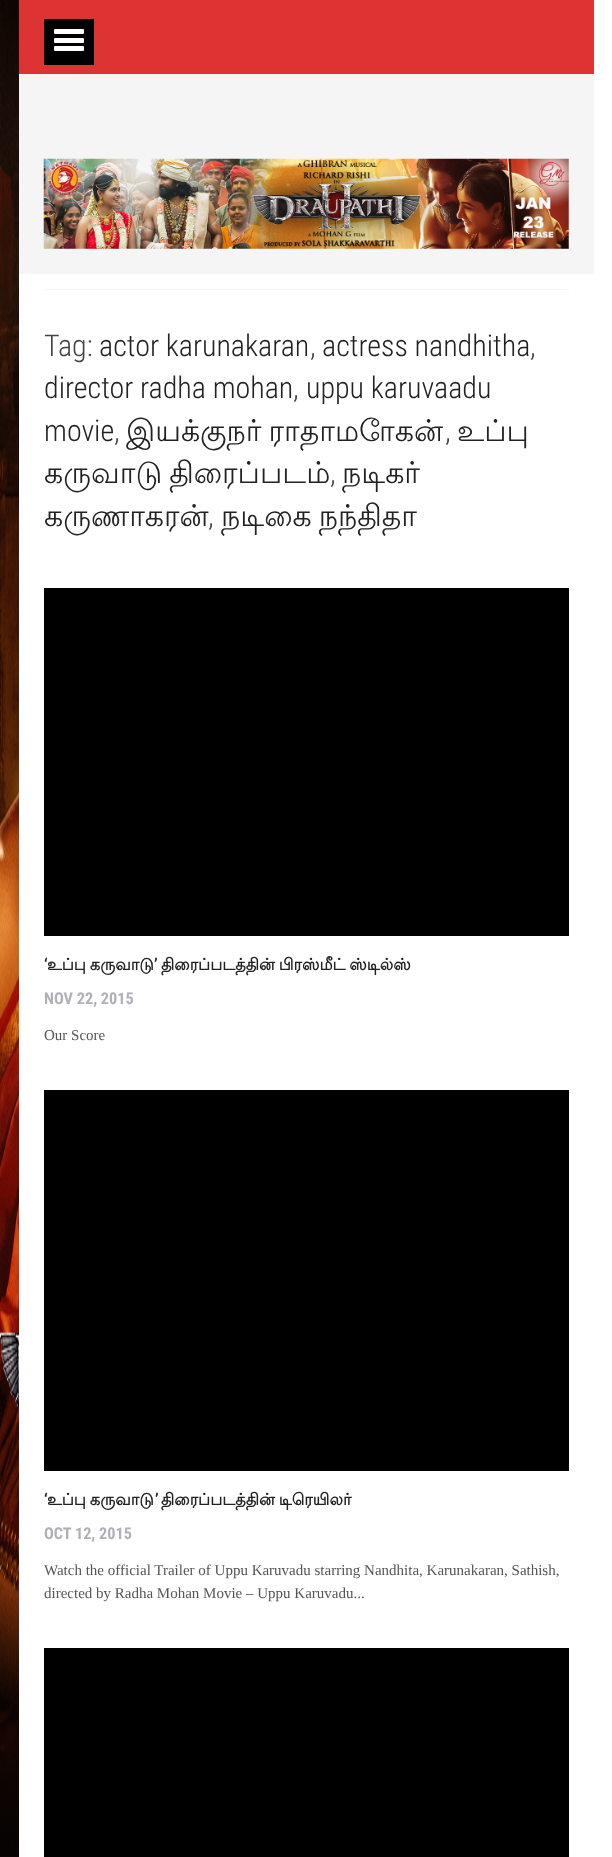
(async () => {
    const canvas = document.querySelector("canvas");
    canvas.width = 612;
    canvas.height = 1857;
    const context = canvas.getContext("2d");
    context.miterLimit = 4;
    context.fontKerning = "normal";
    function write(s, x, y, font, color) {
        context.font = font;
        context.fillStyle = color;
        context.fillText(s, x, y);
    }
    function block(x, y, w, h, color) {
        context.fillStyle = color;
        context.fillRect(x, y, w, h);
    }
    function card(x, y, w, h, r, color) {
        context.fillStyle = color;
        context.beginPath();
        context.roundRect(x, y, w, h, r);
        context.fill();
    }
    async function photo(src, x, y, w, h) {
        const img = new Image();
        img.src = src;
        await img.decode();
        context.drawImage(img, x, y, w, h);
    }

    block(0, 0, 612, 1857, "rgb(255, 255, 255)");
    await photo("media/1.png", 0, 0, 19, 1857);
    block(19, 0, 575, 74, "rgb(221, 51, 51)");
    block(44, 19, 50, 46, "rgb(0, 0, 0)");
    card(54, 29, 30, 5, 1, "rgb(255, 255, 255)");
    card(54, 38, 30, 5, 1, "rgb(255, 255, 255)");
    card(54, 46, 30, 5, 1, "rgb(255, 255, 255)");
    block(19, 74, 575, 200, "rgb(245, 245, 245)");
    await photo("media/2.png", 43, 158, 526, 91);
    card(44, 289, 525, 1, 0.5, "rgb(244, 244, 252)");
    write("Tag:", 44, 356, "300 30px Roboto Condensed", "rgb(68, 68, 68)");
    write("actor karunakaran", 99, 356, "300 30px Roboto Condensed", "rgb(34, 34, 34)");
    write(",", 310, 356, "300 30px Roboto Condensed", "rgb(68, 68, 68)");
    write("actress nandhitha", 322, 356, "300 30px Roboto Condensed", "rgb(34, 34, 34)");
    write(",", 530, 356, "300 30px Roboto Condensed", "rgb(68, 68, 68)");
    write("director radha mohan", 44, 398, "300 30px Roboto Condensed", "rgb(34, 34, 34)");
    write(",", 293, 398, "300 30px Roboto Condensed", "rgb(68, 68, 68)");
    write("uppu karuvaadu", 306, 398, "300 30px Roboto Condensed", "rgb(34, 34, 34)");
    write("movie", 44, 441, "300 30px Roboto Condensed", "rgb(34, 34, 34)");
    write(",", 114, 441, "300 30px Roboto Condensed", "rgb(68, 68, 68)");
    context.wordSpacing = "-2px";
    write("இயக்குநர் ராதாமோகன்", 126, 441, "30px Lohit Tamil", "rgb(34, 34, 34)");
    context.wordSpacing = "0px";
    write(",", 445, 441, "300 30px Roboto Condensed", "rgb(68, 68, 68)");
    write("உப்பு", 457, 441, "30px Lohit Tamil", "rgb(34, 34, 34)");
    context.wordSpacing = "-2px";
    write("கருவாடு திரைப்படம்", 44, 483, "30px Lohit Tamil", "rgb(34, 34, 34)");
    context.wordSpacing = "0px";
    write(",", 330, 483, "300 30px Roboto Condensed", "rgb(68, 68, 68)");
    write("நடிகர்", 342, 483, "30px Lohit Tamil", "rgb(34, 34, 34)");
    write("கருணாகரன்", 44, 526, "30px Lohit Tamil", "rgb(34, 34, 34)");
    write(",", 208, 526, "300 30px Roboto Condensed", "rgb(68, 68, 68)");
    context.wordSpacing = "-2px";
    write("நடிகை நந்திதா", 221, 526, "30px Lohit Tamil", "rgb(34, 34, 34)");
    block(44, 588, 525, 348, "rgb(0, 0, 0)");
    context.wordSpacing = "0px";
    write("‘", 44, 970, "bold 16.25px Roboto Condensed", "rgb(34, 34, 34)");
    context.wordSpacing = "-1px";
    write("உப்பு கருவாடு", 47, 970, "bold 16.25px Lohit Tamil", "rgb(34, 34, 34)");
    context.wordSpacing = "0px";
    write("’", 154, 970, "bold 16.25px Roboto Condensed", "rgb(34, 34, 34)");
    context.wordSpacing = "-1px";
    write("திரைப்படத்தின் பிரஸ்மீட் ஸ்டில்ஸ்", 161, 970, "bold 16.25px Lohit Tamil", "rgb(34, 34, 34)");
    context.wordSpacing = "0px";
    write("NOV 22, 2015", 44, 1004, "bold 16.25px Roboto Condensed", "rgb(176, 176, 184)");
    write("Our Score", 44, 1040, "15px Liberation Serif", "rgb(85, 85, 85)");
    block(44, 1090, 525, 381, "rgb(0, 0, 0)");
    write("‘", 44, 1505, "bold 16.25px Roboto Condensed", "rgb(34, 34, 34)");
    context.wordSpacing = "-1px";
    write("உப்பு கருவாடு", 47, 1505, "bold 16.25px Lohit Tamil", "rgb(34, 34, 34)");
    context.wordSpacing = "0px";
    write("’", 155, 1505, "bold 16.25px Roboto Condensed", "rgb(34, 34, 34)");
    context.wordSpacing = "-1px";
    write("திரைப்படத்தின் டிரெயிலர்", 161, 1505, "bold 16.25px Lohit Tamil", "rgb(34, 34, 34)");
    context.wordSpacing = "0px";
    write("OCT 12, 2015", 44, 1539, "bold 16.25px Roboto Condensed", "rgb(176, 176, 184)");
    write("Watch the official Trailer of Uppu Karuvadu starring Nandhita, Karunakaran, Sathish,", 44, 1575, "15px Liberation Serif", "rgb(85, 85, 85)");
    write("directed by Radha Mohan Movie – Uppu Karuvadu...", 44, 1598, "15px Liberation Serif", "rgb(85, 85, 85)");
    block(44, 1648, 525, 209, "rgb(0, 0, 0)");
})();
